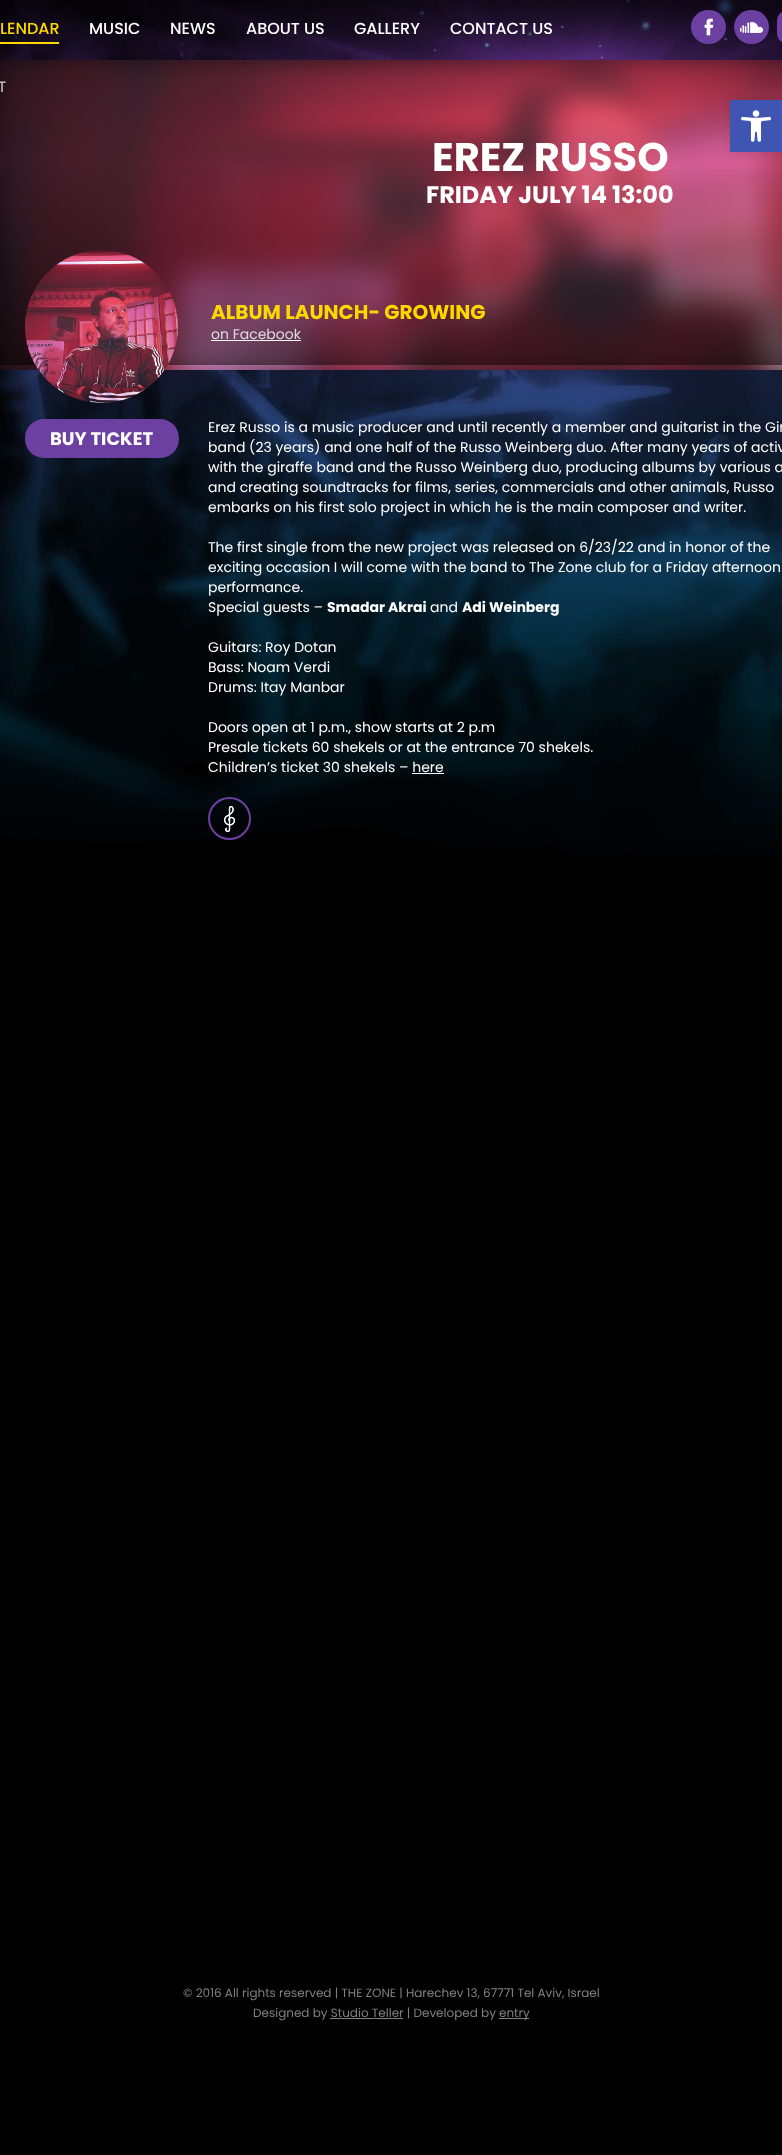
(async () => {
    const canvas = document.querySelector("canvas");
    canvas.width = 782;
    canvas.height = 2155;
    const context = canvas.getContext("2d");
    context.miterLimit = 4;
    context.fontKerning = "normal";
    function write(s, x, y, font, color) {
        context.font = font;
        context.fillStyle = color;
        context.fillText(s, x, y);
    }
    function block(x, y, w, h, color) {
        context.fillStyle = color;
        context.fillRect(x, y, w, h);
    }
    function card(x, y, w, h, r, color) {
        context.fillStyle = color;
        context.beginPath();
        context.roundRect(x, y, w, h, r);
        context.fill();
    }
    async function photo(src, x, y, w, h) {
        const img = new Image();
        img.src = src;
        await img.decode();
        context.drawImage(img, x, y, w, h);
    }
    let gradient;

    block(0, 0, 782, 2155, "rgb(0, 0, 0)");
    await photo("media/4.png", 0, 0, 782, 858);
    card(25, 419, 154, 39, 19, "rgb(108, 64, 161)");
    context.save();
    context.beginPath();
    context.rect(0, 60, 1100, 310);
    context.clip();
    context.fillStyle = "rgb(0, 0, 0)";
    context.filter = "blur(15px)";
    context.beginPath();
    context.rect(-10, 50, 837, 330);
    context.fill();
    context.filter = "none";
    context.restore();
    block(0, 42, 59, 2, "rgb(252, 216, 0)");
    write("LENDAR", 0, 34, "500 16px Poppins", "rgb(252, 216, 0)");
    write("MUSIC", 89, 34, "500 16px Poppins", "rgb(255, 255, 255)");
    write("NEWS", 170, 34, "500 16px Poppins", "rgb(255, 255, 255)");
    write("ABOUT US", 246, 34, "500 16px Poppins", "rgb(255, 255, 255)");
    write("GALLERY", 354, 34, "500 16px Poppins", "rgb(255, 255, 255)");
    write("CONTACT US", 450, 34, "500 16px Poppins", "rgb(255, 255, 255)");
    card(691, 10, 35, 34, 17, "rgb(108, 64, 161)");
    await photo("media/1.png", 704, 18, 10, 18);
    card(734, 10, 35, 34, 17, "rgb(108, 64, 161)");
    await photo("media/2.png", 740, 22, 23, 11);
    card(777, 10, 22, 34, 17, "rgb(108, 64, 161)");
    await photo("media/5.png", 0, 60, 782, 310);
    write("T", -2, 92, "15px Poppins", "rgb(212, 208, 209)");
    context.fillStyle = "rgba(0, 0, 0, 0.1)";
    context.filter = "blur(5px)";
    context.beginPath();
    context.rect(730, 100, 52, 52);
    context.fill();
    context.filter = "none";
    block(730, 100, 52, 52, "rgb(64, 84, 178)");
    await photo("media/3.png", 741, 110, 30, 32);
    gradient = context.createLinearGradient(550, 160, 550, 365);
    gradient.addColorStop(0, "rgba(0, 0, 0, 0)");
    gradient.addColorStop(1, "rgba(0, 0, 0, 0.5)");
    context.fillStyle = gradient;
    context.fillRect(0, 169, 782, 196);
    write("EREZ RUSSO", 432, 171, "bold 40px Poppins", "rgb(255, 255, 255)");
    write("FRIDAY JULY 14 13:00", 426, 203, "bold 24px Poppins", "rgb(255, 255, 255)");
    await photo("media/6.png", 25, 250, 153, 153);
    write("ALBUM LAUNCH- GROWING", 211, 319, "bold 20px Poppins", "rgb(252, 216, 0)");
    write("on Facebook", 211, 339, "14px Poppins", "rgb(226, 216, 222)");
    block(211, 340, 90, 1, "rgba(255, 255, 255, 0.8)");
    block(211, 340, 90, 1, "rgba(255, 255, 255, 0.8)");
    write("BUY TICKET", 50, 445, "bold 18px Poppins", "rgb(255, 255, 255)");
    write("Erez Russo is a music producer and until recently a member and guitarist in the Gir", 208, 432, "14px Poppins", "rgb(255, 255, 255)");
    write("band (23 years) and one half of the Russo Weinberg duo. After many years of activ", 208, 452, "14px Poppins", "rgb(255, 255, 255)");
    write("with the giraffe band and the Russo Weinberg duo, producing albums by various a", 208, 472, "14px Poppins", "rgb(255, 255, 255)");
    write("and creating soundtracks for films, series, commercials and other animals, Russo", 208, 492, "14px Poppins", "rgb(255, 255, 255)");
    write("embarks on his first solo project in which he is the main composer and writer.", 208, 512, "14px Poppins", "rgb(255, 255, 255)");
    write("The first single from the new project was released on 6/23/22 and in honor of the", 208, 552, "14px Poppins", "rgb(255, 255, 255)");
    write("exciting occasion I will come with the band to The Zone club for a Friday afternoon", 208, 572, "14px Poppins", "rgb(255, 255, 255)");
    write("performance.", 208, 592, "14px Poppins", "rgb(255, 255, 255)");
    write("Special guests –", 208, 612, "14px Poppins", "rgb(255, 255, 255)");
    write("Smadar Akrai", 327, 612, "bold 14px Poppins", "rgb(255, 255, 255)");
    write("and", 430, 612, "14px Poppins", "rgb(255, 255, 255)");
    write("Adi Weinberg", 462, 612, "bold 14px Poppins", "rgb(255, 255, 255)");
    write("Guitars: Roy Dotan", 208, 652, "14px Poppins", "rgb(255, 255, 255)");
    write("Bass: Noam Verdi", 208, 672, "14px Poppins", "rgb(255, 255, 255)");
    write("Drums: Itay Manbar", 208, 692, "14px Poppins", "rgb(255, 255, 255)");
    write("Doors open at 1 p.m., show starts at 2 p.m", 208, 732, "14px Poppins", "rgb(255, 255, 255)");
    write("Presale tickets 60 shekels or at the entrance 70 shekels.", 208, 752, "14px Poppins", "rgb(255, 255, 255)");
    write("Children’s ticket 30 shekels – here", 208, 772, "14px Poppins", "rgb(255, 255, 255)");
    block(412, 773, 32, 1, "rgb(255, 255, 255)");
    await photo("media/7.png", 224, 806, 11, 26);
    context.beginPath();
    context.arc(229.5, 818.5, 20.5, 0, Math.PI * 2);
    context.strokeStyle = "rgb(108, 64, 161)";
    context.lineWidth = 2;
    context.stroke();
    write("© 2016 All rights reserved | THE ZONE | Harechev 13, 67771 Tel Aviv, Israel", 183, 1997, "12px Poppins", "rgb(128, 128, 128)");
    write("Designed by Studio Teller | Developed by", 253, 2017, "12px Poppins", "rgb(128, 128, 128)");
    block(499, 2018, 30, 1, "rgb(128, 128, 128)");
    write("entry", 499, 2017, "12px Poppins", "rgb(128, 128, 128)");
    block(330, 2018, 73, 1, "rgb(128, 128, 128)");
})();
